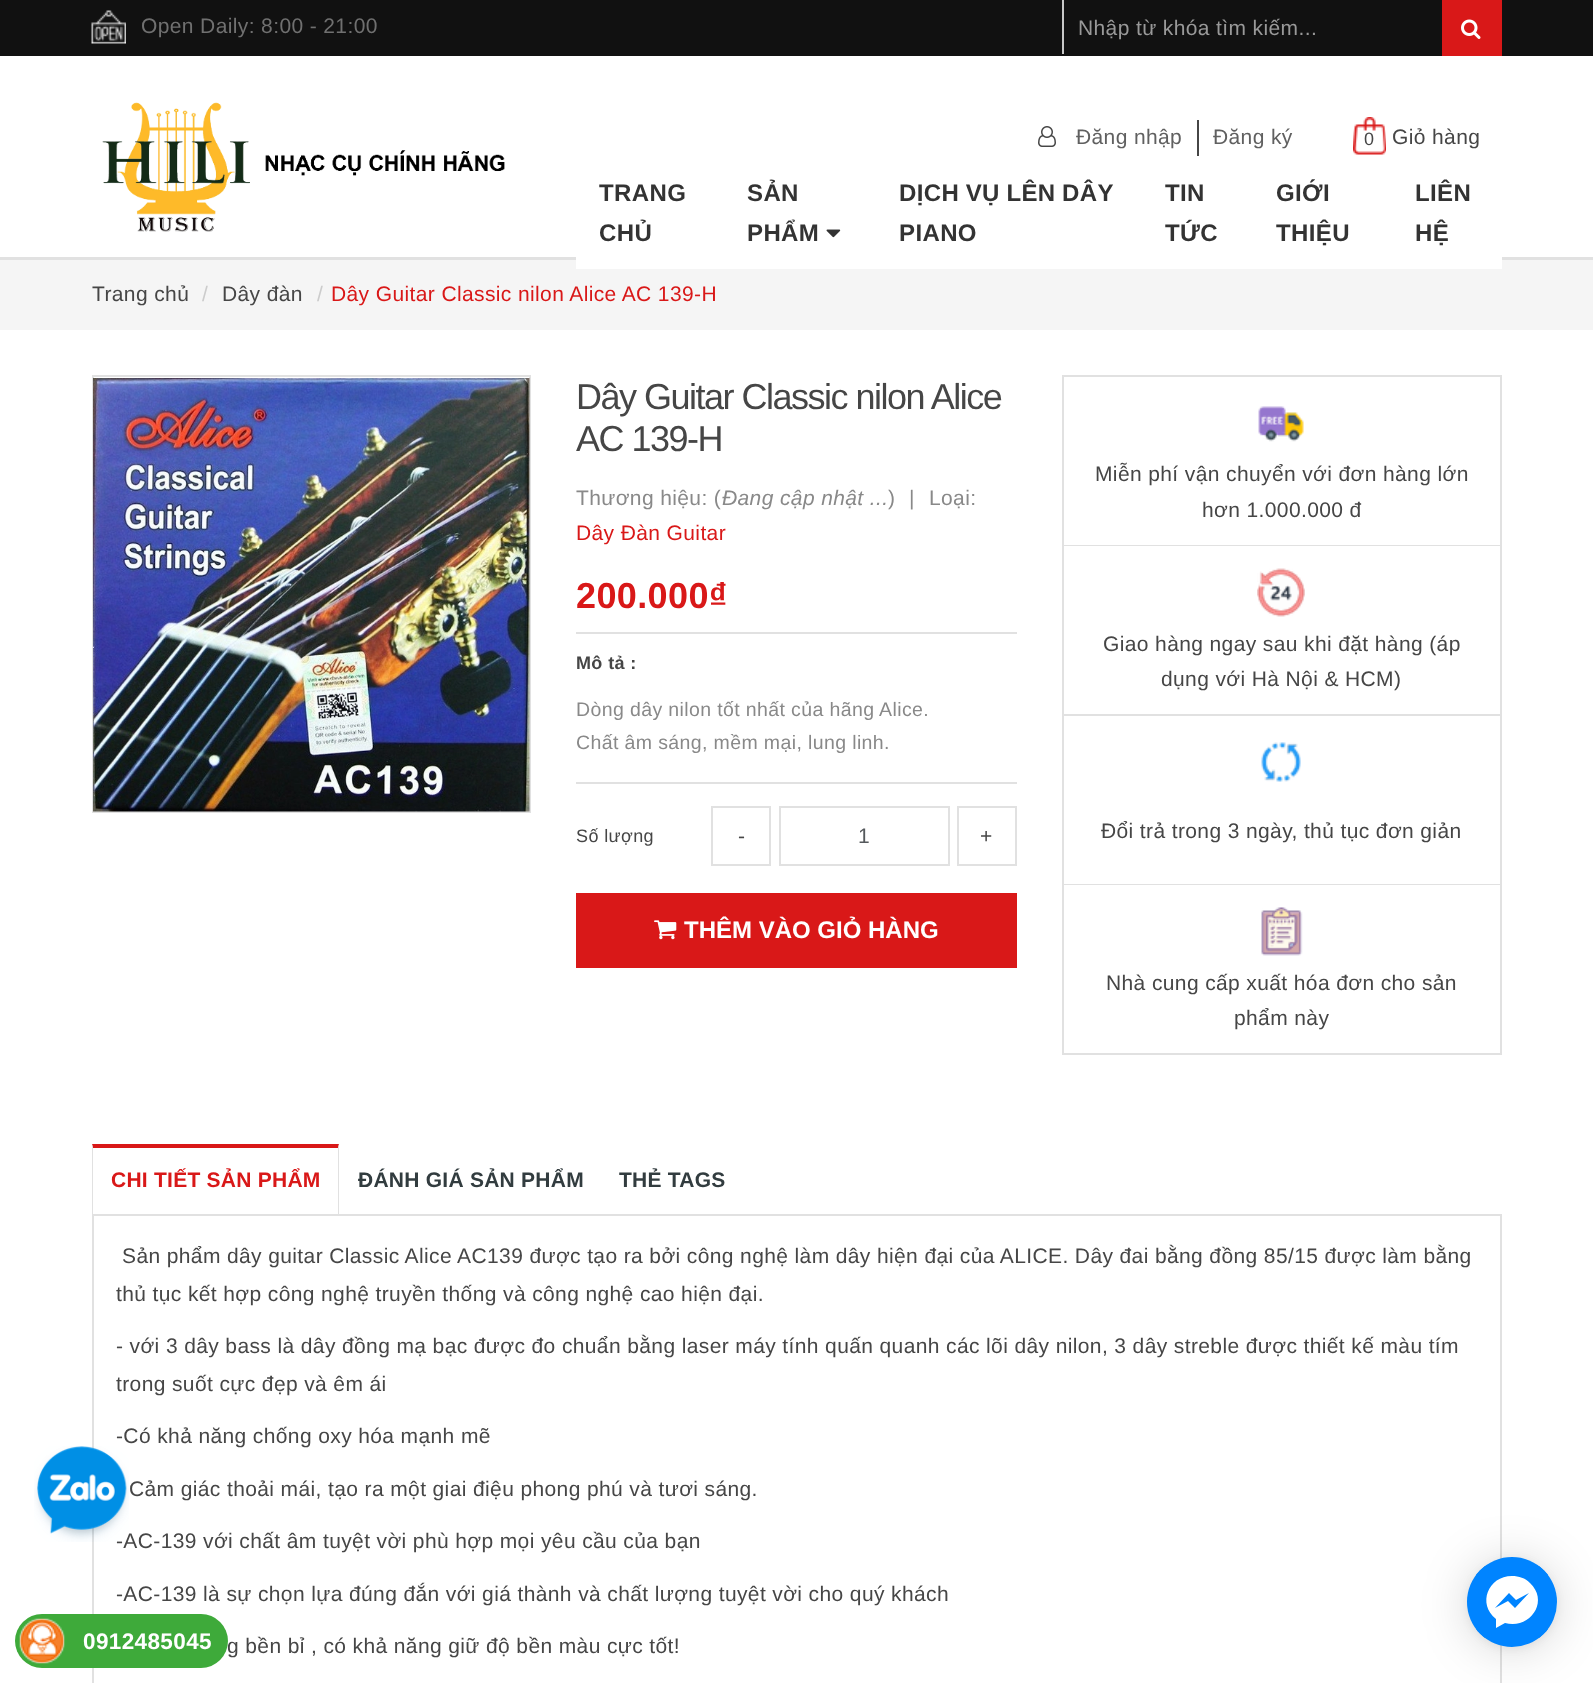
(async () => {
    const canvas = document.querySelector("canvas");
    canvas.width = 1593;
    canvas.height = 1683;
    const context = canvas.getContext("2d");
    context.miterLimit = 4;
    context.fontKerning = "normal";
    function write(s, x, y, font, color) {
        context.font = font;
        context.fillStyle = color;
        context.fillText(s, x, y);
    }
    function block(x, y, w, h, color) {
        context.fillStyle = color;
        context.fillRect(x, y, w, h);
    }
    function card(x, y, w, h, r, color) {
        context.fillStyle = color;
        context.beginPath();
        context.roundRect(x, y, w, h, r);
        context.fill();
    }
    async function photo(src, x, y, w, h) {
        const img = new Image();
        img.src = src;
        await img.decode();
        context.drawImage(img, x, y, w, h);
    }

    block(0, 0, 1593, 1683, "rgb(255, 255, 255)");
    block(0, 0, 1593, 56, "rgb(17, 17, 17)");
    await photo("media/1.png", 91, 10, 35, 34);
    context.letterSpacing = "0.38px";
    write("Open Daily: 8:00 - 21:00", 141, 33, "21px Liberation Sans", "rgb(112, 112, 112)");
    block(1062, 0, 2, 54, "rgb(200, 200, 200)");
    write("Nhập từ khóa tìm kiếm...", 1078, 35, "21px Liberation Sans", "rgb(153, 153, 153)");
    block(1442, 0, 60, 56, "rgb(217, 24, 24)");
    await photo("media/2.png", 1461, 19, 20, 20);
    block(0, 257, 1593, 3, "rgb(225, 225, 225)");
    await photo("media/3.png", 102, 102, 403, 130);
    await photo("media/4.png", 1038, 126, 18, 21);
    write("Đăng nhập", 1076, 144, "21px Liberation Sans", "rgb(96, 96, 96)");
    block(1197, 120, 2, 36, "rgb(70, 70, 70)");
    write("Đăng ký", 1213, 144, "21px Liberation Sans", "rgb(96, 96, 96)");
    await photo("media/5.png", 1353, 117, 33, 38);
    write("Giỏ hàng", 1392, 144, "21px Liberation Sans", "rgb(70, 70, 70)");
    write("0", 1364, 145, "18px Liberation Sans", "rgb(70, 70, 70)");
    block(0, 260, 1593, 70, "rgb(245, 245, 245)");
    block(576, 257, 926, 12, "rgb(255, 255, 255)");
    write("TRANG", 599, 201, "bold 24px Liberation Sans", "rgb(51, 51, 51)");
    write("CHỦ", 599, 241, "bold 24px Liberation Sans", "rgb(51, 51, 51)");
    write("SẢN", 747, 201, "bold 24px Liberation Sans", "rgb(51, 51, 51)");
    write("PHẨM", 747, 241, "bold 24px Liberation Sans", "rgb(51, 51, 51)");
    await photo("media/6.png", 826, 229, 15, 9);
    context.wordSpacing = "-0.5px";
    write("DỊCH VỤ LÊN DÂY", 899, 201, "bold 24px Liberation Sans", "rgb(51, 51, 51)");
    context.wordSpacing = "0px";
    write("PIANO", 899, 241, "bold 24px Liberation Sans", "rgb(51, 51, 51)");
    write("TIN", 1165, 201, "bold 24px Liberation Sans", "rgb(51, 51, 51)");
    write("TỨC", 1165, 241, "bold 24px Liberation Sans", "rgb(51, 51, 51)");
    write("GIỚI", 1276, 201, "bold 24px Liberation Sans", "rgb(51, 51, 51)");
    write("THIỆU", 1276, 241, "bold 24px Liberation Sans", "rgb(51, 51, 51)");
    write("LIÊN", 1415, 201, "bold 24px Liberation Sans", "rgb(51, 51, 51)");
    write("HỆ", 1415, 241, "bold 24px Liberation Sans", "rgb(51, 51, 51)");
    write("Trang chủ", 92, 301, "21px Liberation Sans", "rgb(70, 70, 70)");
    write("/", 202, 301, "21px Liberation Sans", "rgb(204, 204, 204)");
    write("Dây đàn", 222, 301, "21px Liberation Sans", "rgb(70, 70, 70)");
    write("/", 317, 301, "21px Liberation Sans", "rgb(204, 204, 204)");
    write("Dây Guitar Classic nilon Alice AC 139-H", 331, 301, "21px Liberation Sans", "rgb(217, 24, 24)");
    context.beginPath();
    context.moveTo(92, 1144);
    context.lineTo(339, 1144);
    context.lineTo(338, 1148);
    context.lineTo(93, 1148);
    context.closePath();
    context.fill();
    context.fillStyle = "rgb(225, 225, 225)";
    context.beginPath();
    context.moveTo(339, 1144);
    context.lineTo(339, 1216);
    context.lineTo(338, 1214);
    context.lineTo(338, 1148);
    context.closePath();
    context.fill();
    context.beginPath();
    context.moveTo(92, 1216);
    context.lineTo(92, 1144);
    context.lineTo(93, 1148);
    context.lineTo(93, 1214);
    context.closePath();
    context.fill();
    context.strokeStyle = "rgb(225, 225, 225)";
    context.lineWidth = 2;
    context.strokeRect(93, 1215, 1408, 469);
    write("-Có khả năng chống oxy hóa mạnh mẽ", 116, 1443, "21px Liberation Sans", "rgb(70, 70, 70)");
    write("-AC-139 với chất âm tuyệt vời phù hợp mọi yêu cầu của bạn", 116, 1548, "21px Liberation Sans", "rgb(70, 70, 70)");
    await photo("media/7.png", 34, 1446, 95, 96);
    context.strokeRect(93, 376, 437, 436);
    await photo("media/8.png", 93, 378, 437, 434);
    context.letterSpacing = "-1.5px";
    write("Dây Guitar Classic nilon Alice", 576, 409, "36px Liberation Sans", "rgb(70, 70, 70)");
    write("AC 139-H", 576, 451, "36px Liberation Sans", "rgb(70, 70, 70)");
    context.letterSpacing = "0.38px";
    write("Thương hiệu: (", 576, 505, "21px Liberation Sans", "rgb(137, 137, 137)");
    write("Đang cập nhật ...", 722, 505, "italic 21px Liberation Sans", "rgb(137, 137, 137)");
    write(")", 888, 505, "21px Liberation Sans", "rgb(137, 137, 137)");
    write("|", 909, 505, "21px Liberation Sans", "rgb(137, 137, 137)");
    write("Loại:", 929, 505, "21px Liberation Sans", "rgb(137, 137, 137)");
    write("Dây Đàn Guitar", 576, 540, "21px Liberation Sans", "rgb(217, 24, 24)");
    block(576, 632, 441, 2, "rgb(225, 225, 225)");
    write("200.000₫", 576, 608, "bold 36px Liberation Sans", "rgb(217, 24, 24)");
    write("Mô tả :", 576, 669, "bold 18px Liberation Sans", "rgb(70, 70, 70)");
    block(576, 782, 441, 2, "rgb(225, 225, 225)");
    write("Dòng dây nilon tốt nhất của hãng Alice.", 576, 716, "19.5px Liberation Sans", "rgb(137, 137, 137)");
    write("Chất âm sáng, mềm mại, lung linh.", 576, 749, "19.5px Liberation Sans", "rgb(137, 137, 137)");
    write("Số lượng", 576, 842, "18px Liberation Sans", "rgb(70, 70, 70)");
    context.strokeRect(712, 807, 58, 58);
    context.letterSpacing = "0px";
    write("-", 738, 843, "21px Liberation Sans", "rgb(70, 70, 70)");
    context.strokeRect(780, 807, 169, 58);
    context.letterSpacing = "0.38px";
    write("1", 858, 843, "21px Liberation Sans", "rgb(85, 89, 92)");
    context.strokeRect(958, 807, 58, 58);
    context.letterSpacing = "0px";
    write("+", 980, 843, "21px Liberation Sans", "rgb(70, 70, 70)");
    block(576, 893, 441, 75, "rgb(217, 24, 24)");
    await photo("media/9.png", 654, 920, 23, 20);
    write("THÊM VÀO GIỎ HÀNG", 684, 938, "bold 24px Liberation Sans", "rgb(255, 255, 255)");
    context.strokeRect(1063, 376, 438, 678);
    block(1064, 545, 436, 1, "rgb(225, 225, 225)");
    await photo("media/10.png", 1258, 406, 46, 36);
    context.letterSpacing = "0.38px";
    write("Miễn phí vận chuyển với đơn hàng lớn", 1095, 481, "21px Liberation Sans", "rgb(70, 70, 70)");
    write("hơn 1.000.000 đ", 1202, 517, "21px Liberation Sans", "rgb(70, 70, 70)");
    block(1064, 714, 436, 2, "rgb(225, 225, 225)");
    await photo("media/11.png", 1257, 568, 48, 49);
    write("Giao hàng ngay sau khi đặt hàng (áp", 1103, 651, "21px Liberation Sans", "rgb(70, 70, 70)");
    write("dụng với Hà Nội & HCM)", 1161, 686, "21px Liberation Sans", "rgb(70, 70, 70)");
    block(1064, 884, 436, 1, "rgb(225, 225, 225)");
    await photo("media/12.png", 1261, 742, 40, 40);
    write("Đổi trả trong 3 ngày, thủ tục đơn giản", 1101, 838, "21px Liberation Sans", "rgb(70, 70, 70)");
    await photo("media/13.png", 1261, 907, 42, 49);
    write("Nhà cung cấp xuất hóa đơn cho sản", 1106, 990, "21px Liberation Sans", "rgb(70, 70, 70)");
    write("phẩm này", 1234, 1025, "21px Liberation Sans", "rgb(70, 70, 70)");
    context.letterSpacing = "0.25px";
    write("CHI TIẾT SẢN PHẨM", 111, 1187, "bold 21px Liberation Sans", "rgb(217, 24, 24)");
    write("ĐÁNH GIÁ SẢN PHẨM", 358, 1187, "bold 21px Liberation Sans", "rgb(50, 60, 63)");
    write("THẺ TAGS", 619, 1187, "bold 21px Liberation Sans", "rgb(50, 60, 63)");
    context.letterSpacing = "0.38px";
    write("Sản phẩm dây guitar Classic Alice AC139 được tạo ra bởi công nghệ làm dây hiện đại của ALICE. Dây đai bằng đồng 85/15 được làm bằng", 122, 1263, "21px Liberation Sans", "rgb(70, 70, 70)");
    write("thủ tục kết hợp công nghệ truyền thống và công nghệ cao hiện đại.", 116, 1301, "21px Liberation Sans", "rgb(70, 70, 70)");
    write("- với 3 dây bass là dây đồng mạ bạc được đo chuẩn bằng laser máy tính quấn quanh các lõi dây nilon, 3 dây streble được thiết kế màu tím", 116, 1353, "21px Liberation Sans", "rgb(70, 70, 70)");
    write("trong suốt cực đẹp và êm ái", 116, 1391, "21px Liberation Sans", "rgb(70, 70, 70)");
    write("Cảm giác thoải mái, tạo ra một giai điệu phong phú và tươi sáng.", 129, 1496, "21px Liberation Sans", "rgb(70, 70, 70)");
    write("-AC-139 là sự chọn lựa đúng đắn với giá thành và chất lượng tuyệt vời cho quý khách", 116, 1601, "21px Liberation Sans", "rgb(70, 70, 70)");
    write("g bền bỉ , có khả năng giữ độ bền màu cực tốt!", 227, 1653, "21px Liberation Sans", "rgb(70, 70, 70)");
    context.fillStyle = "rgba(0, 0, 0, 0.16)";
    context.filter = "blur(24px)";
    context.beginPath();
    context.roundRect(1467, 1560, 90, 90, 45);
    context.fill();
    context.filter = "none";
    context.fillStyle = "rgba(0, 0, 0, 0.06)";
    context.filter = "blur(4.5px)";
    context.beginPath();
    context.roundRect(1467, 1559, 90, 90, 45);
    context.fill();
    context.filter = "none";
    context.fillStyle = "rgb(0, 132, 255)";
    context.beginPath();
    context.arc(1512, 1602, 45, 0, Math.PI * 2);
    context.fill();
    context.save();
    context.beginPath();
    context.roundRect(1467, 1557, 90, 90, 45);
    context.clip();
    block(1476, 1566, 72, 72, "rgb(0, 132, 255)");
    context.restore();
    context.fillStyle = "rgb(255, 255, 255)";
    context.beginPath();
    context.moveTo(1512, 1576);
    context.bezierCurveTo(1488, 1576, 1477, 1604, 1496, 1619);
    context.lineTo(1496, 1628);
    context.lineTo(1505, 1623);
    context.bezierCurveTo(1529, 1630, 1550, 1602, 1530, 1583);
    context.bezierCurveTo(1525, 1578, 1519, 1576, 1512, 1576);
    context.closePath();
    context.moveTo(1515, 1608);
    context.lineTo(1508, 1601);
    context.lineTo(1495, 1608);
    context.lineTo(1509, 1593);
    context.lineTo(1516, 1600);
    context.lineTo(1529, 1593);
    context.closePath();
    context.fill();
    card(15, 1614, 213, 54, 27, "rgb(62, 170, 58)");
    await photo("media/14.png", 19, 1618, 46, 46);
    write("0912485045", 83, 1649, "bold 22.5px Liberation Sans", "rgb(255, 255, 255)");
})();
